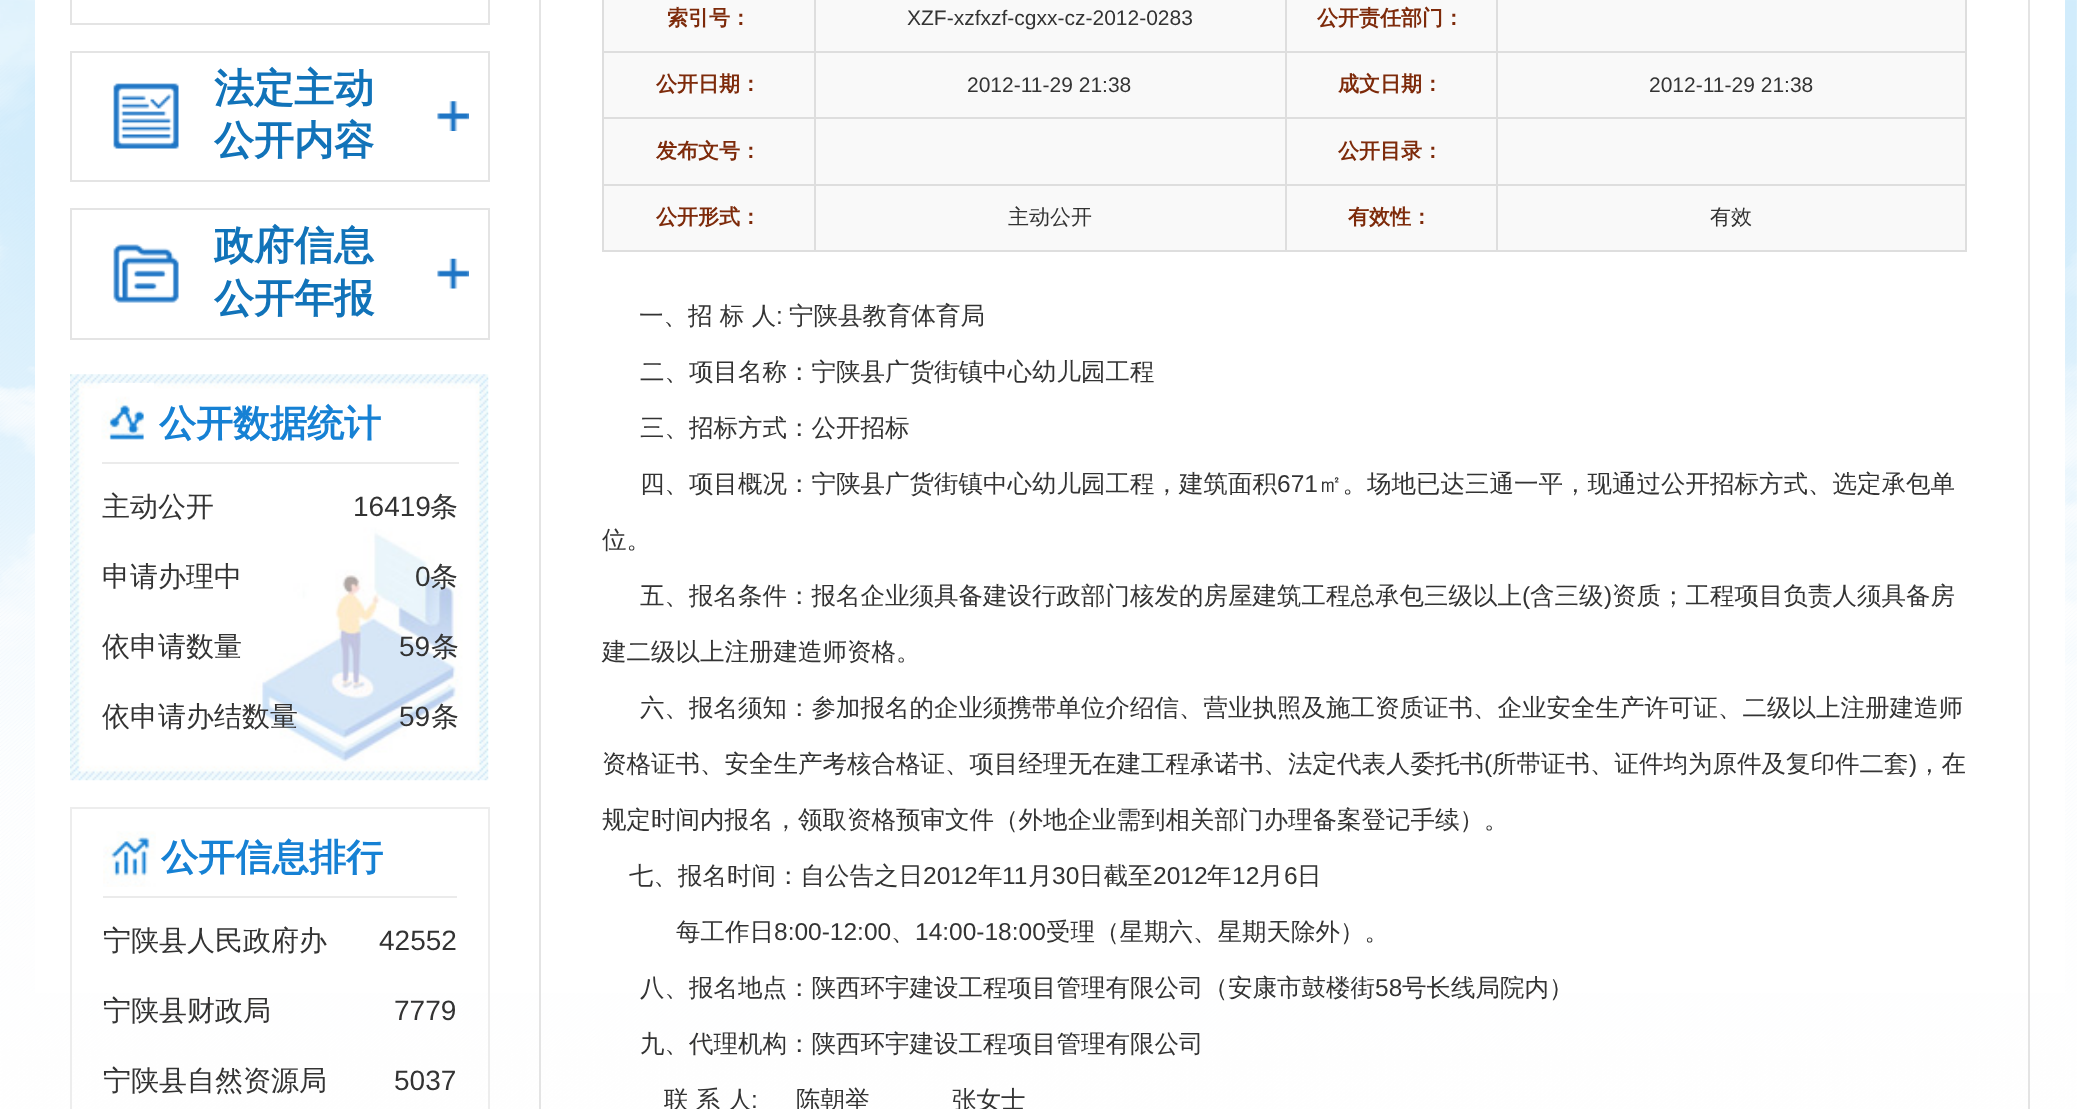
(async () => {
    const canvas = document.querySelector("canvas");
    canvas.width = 2077;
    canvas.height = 1109;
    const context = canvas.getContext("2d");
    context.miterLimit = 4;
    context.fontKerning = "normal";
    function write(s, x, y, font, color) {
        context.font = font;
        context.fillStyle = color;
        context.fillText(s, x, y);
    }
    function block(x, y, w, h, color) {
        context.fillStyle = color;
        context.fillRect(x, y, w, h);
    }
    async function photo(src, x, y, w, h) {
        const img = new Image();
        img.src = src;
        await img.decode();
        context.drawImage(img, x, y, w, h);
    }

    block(0, 0, 2077, 1109, "rgb(255, 255, 255)");
    await photo("media/1.png", 0, 0, 2077, 1109);
    block(35, 0, 2030, 993, "rgb(255, 255, 255)");
    context.strokeStyle = "rgb(228, 228, 228)";
    context.lineWidth = 2;
    context.strokeRect(71, -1, 418, 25);
    await photo("media/2.png", 437, 101, 32, 30);
    context.strokeRect(71, 52, 418, 129);
    await photo("media/3.png", 113, 83, 66, 66);
    write("法定主动", 214, 102, "bold 40px WenQuanYi Zen Hei", "rgb(17, 115, 185)");
    write("公开内容", 214, 154, "bold 40px WenQuanYi Zen Hei", "rgb(17, 115, 185)");
    await photo("media/4.png", 437, 258, 32, 31);
    context.strokeRect(71, 209, 418, 130);
    await photo("media/5.png", 113, 244, 66, 59);
    write("政府信息", 214, 259, "bold 40px WenQuanYi Zen Hei", "rgb(17, 115, 185)");
    write("公开年报", 214, 312, "bold 40px WenQuanYi Zen Hei", "rgb(17, 115, 185)");
    await photo("media/6.png", 70, 374, 419, 407);
    await photo("media/7.png", 101, 383, 53, 57);
    block(102, 462, 357, 2, "rgb(235, 235, 235)");
    write("公开数据统计", 159, 436, "bold 37px WenQuanYi Zen Hei", "rgb(22, 129, 212)");
    write("主动公开", 102, 516, "500 28px WenQuanYi Zen Hei", "rgb(51, 51, 51)");
    write("16419", 353, 516, "28px Liberation Sans", "rgb(51, 51, 51)");
    write("条", 430, 516, "500 28px WenQuanYi Zen Hei", "rgb(51, 51, 51)");
    write("申请办理中", 102, 586, "500 28px WenQuanYi Zen Hei", "rgb(51, 51, 51)");
    write("0", 415, 586, "28px Liberation Sans", "rgb(51, 51, 51)");
    write("条", 430, 586, "500 28px WenQuanYi Zen Hei", "rgb(51, 51, 51)");
    write("依申请数量", 102, 656, "500 28px WenQuanYi Zen Hei", "rgb(51, 51, 51)");
    write("59", 399, 656, "28px Liberation Sans", "rgb(51, 51, 51)");
    write("条", 431, 656, "500 28px WenQuanYi Zen Hei", "rgb(51, 51, 51)");
    write("依申请办结数量", 102, 726, "500 28px WenQuanYi Zen Hei", "rgb(51, 51, 51)");
    write("59", 399, 726, "28px Liberation Sans", "rgb(51, 51, 51)");
    write("条", 431, 726, "500 28px WenQuanYi Zen Hei", "rgb(51, 51, 51)");
    context.strokeStyle = "rgb(237, 237, 237)";
    context.strokeRect(71, 808, 418, 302);
    await photo("media/8.png", 103, 831, 53, 56);
    block(103, 896, 354, 2, "rgb(235, 235, 235)");
    write("公开信息排行", 161, 870, "bold 37px WenQuanYi Zen Hei", "rgb(22, 129, 212)");
    write("宁陕县人民政府办", 103, 950, "500 28px WenQuanYi Zen Hei", "rgb(51, 51, 51)");
    write("42552", 379, 950, "28px Liberation Sans", "rgb(51, 51, 51)");
    write("宁陕县财政局", 103, 1020, "500 28px WenQuanYi Zen Hei", "rgb(51, 51, 51)");
    write("7779", 394, 1020, "28px Liberation Sans", "rgb(51, 51, 51)");
    write("宁陕县自然资源局", 103, 1090, "500 28px WenQuanYi Zen Hei", "rgb(51, 51, 51)");
    write("5037", 394, 1090, "28px Liberation Sans", "rgb(51, 51, 51)");
    context.strokeStyle = "rgb(228, 228, 228)";
    context.strokeRect(540, -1, 1489, 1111);
    block(604, 0, 210, 51, "rgb(249, 249, 249)");
    write("索引号：", 667, 25, "bold 21px WenQuanYi Zen Hei", "rgb(125, 42, 10)");
    block(816, 0, 469, 51, "rgb(249, 249, 249)");
    block(1496, 51, 471, 2, "rgb(222, 222, 222)");
    block(1496, 117, 471, 2, "rgb(222, 222, 222)");
    block(1496, 184, 471, 2, "rgb(222, 222, 222)");
    block(1965, 184, 2, 68, "rgb(222, 222, 222)");
    block(1496, 250, 471, 2, "rgb(222, 222, 222)");
    block(1496, 184, 2, 68, "rgb(222, 222, 222)");
    block(1285, 184, 213, 2, "rgb(222, 222, 222)");
    block(1496, 117, 2, 69, "rgb(222, 222, 222)");
    block(1285, 117, 213, 2, "rgb(222, 222, 222)");
    block(1496, 51, 2, 68, "rgb(222, 222, 222)");
    block(1285, 51, 213, 2, "rgb(222, 222, 222)");
    block(1285, 250, 213, 2, "rgb(222, 222, 222)");
    block(1285, 184, 2, 68, "rgb(222, 222, 222)");
    block(814, 184, 472, 2, "rgb(222, 222, 222)");
    block(1285, 117, 2, 69, "rgb(222, 222, 222)");
    block(814, 117, 472, 2, "rgb(222, 222, 222)");
    block(1285, 51, 2, 68, "rgb(222, 222, 222)");
    block(814, 51, 472, 2, "rgb(222, 222, 222)");
    block(814, 250, 472, 2, "rgb(222, 222, 222)");
    block(814, 184, 2, 68, "rgb(222, 222, 222)");
    block(602, 184, 214, 2, "rgb(222, 222, 222)");
    block(814, 117, 2, 69, "rgb(222, 222, 222)");
    block(602, 117, 214, 2, "rgb(222, 222, 222)");
    block(814, 51, 2, 68, "rgb(222, 222, 222)");
    block(602, 51, 214, 2, "rgb(222, 222, 222)");
    block(814, 0, 2, 53, "rgb(222, 222, 222)");
    write("XZF-xzfxzf-cgxx-cz-2012-0283", 907, 25, "21px Liberation Sans", "rgb(51, 51, 51)");
    block(1287, 0, 209, 51, "rgb(249, 249, 249)");
    block(1285, 0, 2, 53, "rgb(222, 222, 222)");
    write("公开责任部门：", 1317, 25, "bold 21px WenQuanYi Zen Hei", "rgb(125, 42, 10)");
    block(1498, 0, 467, 51, "rgb(249, 249, 249)");
    block(1496, 0, 2, 53, "rgb(222, 222, 222)");
    block(604, 53, 210, 64, "rgb(249, 249, 249)");
    block(602, 250, 214, 2, "rgb(222, 222, 222)");
    block(602, 184, 2, 68, "rgb(222, 222, 222)");
    block(602, 117, 2, 69, "rgb(222, 222, 222)");
    block(602, 0, 2, 119, "rgb(222, 222, 222)");
    write("公开日期：", 656, 91, "bold 21px WenQuanYi Zen Hei", "rgb(125, 42, 10)");
    block(816, 53, 469, 64, "rgb(249, 249, 249)");
    write("2012-11-29 21:38", 967, 92, "21px Liberation Sans", "rgb(51, 51, 51)");
    block(1287, 53, 209, 64, "rgb(249, 249, 249)");
    write("成文日期：", 1338, 91, "bold 21px WenQuanYi Zen Hei", "rgb(125, 42, 10)");
    block(1498, 53, 467, 64, "rgb(249, 249, 249)");
    block(1965, 117, 2, 69, "rgb(222, 222, 222)");
    block(1965, 0, 2, 119, "rgb(222, 222, 222)");
    write("2012-11-29 21:38", 1649, 92, "21px Liberation Sans", "rgb(51, 51, 51)");
    block(604, 119, 210, 65, "rgb(249, 249, 249)");
    write("发布文号：", 656, 158, "bold 21px WenQuanYi Zen Hei", "rgb(125, 42, 10)");
    block(816, 119, 469, 65, "rgb(249, 249, 249)");
    block(1287, 119, 209, 65, "rgb(249, 249, 249)");
    write("公开目录：", 1338, 158, "bold 21px WenQuanYi Zen Hei", "rgb(125, 42, 10)");
    block(1498, 119, 467, 65, "rgb(249, 249, 249)");
    block(604, 186, 210, 64, "rgb(249, 249, 249)");
    write("公开形式：", 656, 224, "bold 21px WenQuanYi Zen Hei", "rgb(125, 42, 10)");
    block(816, 186, 469, 64, "rgb(249, 249, 249)");
    write("主动公开", 1008, 224, "500 21px WenQuanYi Zen Hei", "rgb(51, 51, 51)");
    block(1287, 186, 209, 64, "rgb(249, 249, 249)");
    write("有效性：", 1348, 224, "bold 21px WenQuanYi Zen Hei", "rgb(125, 42, 10)");
    block(1498, 186, 467, 64, "rgb(249, 249, 249)");
    write("有效", 1710, 224, "500 21px WenQuanYi Zen Hei", "rgb(51, 51, 51)");
    write("一、招 标 人", 639, 324, "500 24.5px WenQuanYi Zen Hei", "rgb(51, 51, 51)");
    write(":", 776, 324, "24.5px Liberation Sans", "rgb(51, 51, 51)");
    write("宁陕县教育体育局", 789, 324, "500 24.5px WenQuanYi Zen Hei", "rgb(51, 51, 51)");
    write("二、项目名称：宁陕县广货街镇中心幼儿园工程", 640, 380, "500 24.5px WenQuanYi Zen Hei", "rgb(51, 51, 51)");
    write("三、招标方式：公开招标", 640, 436, "500 24.5px WenQuanYi Zen Hei", "rgb(51, 51, 51)");
    write("四、项目概况：宁陕县广货街镇中心幼儿园工程，建筑面积", 640, 492, "500 24.5px WenQuanYi Zen Hei", "rgb(51, 51, 51)");
    write("671", 1277, 492, "24.5px Liberation Sans", "rgb(51, 51, 51)");
    write("㎡。场地已达三通一平，现通过公开招标方式、选定承包单", 1318, 492, "500 24.5px WenQuanYi Zen Hei", "rgb(51, 51, 51)");
    write("位。", 602, 548, "500 24.5px WenQuanYi Zen Hei", "rgb(51, 51, 51)");
    write("五、报名条件：报名企业须具备建设行政部门核发的房屋建筑工程总承包三级以上", 640, 604, "500 24.5px WenQuanYi Zen Hei", "rgb(51, 51, 51)");
    write("(", 1522, 604, "24.5px Liberation Sans", "rgb(51, 51, 51)");
    write("含三级", 1530, 604, "500 24.5px WenQuanYi Zen Hei", "rgb(51, 51, 51)");
    write(")", 1604, 604, "24.5px Liberation Sans", "rgb(51, 51, 51)");
    write("资质；工程项目负责人须具备房", 1612, 604, "500 24.5px WenQuanYi Zen Hei", "rgb(51, 51, 51)");
    write("建二级以上注册建造师资格。", 602, 660, "500 24.5px WenQuanYi Zen Hei", "rgb(51, 51, 51)");
    write("六、报名须知：参加报名的企业须携带单位介绍信、营业执照及施工资质证书、企业安全生产许可证、二级以上注册建造师", 640, 716, "500 24.5px WenQuanYi Zen Hei", "rgb(51, 51, 51)");
    write("资格证书、安全生产考核合格证、项目经理无在建工程承诺书、法定代表人委托书", 602, 772, "500 24.5px WenQuanYi Zen Hei", "rgb(51, 51, 51)");
    write("(", 1484, 772, "24.5px Liberation Sans", "rgb(51, 51, 51)");
    write("所带证书、证件均为原件及复印件二套", 1492, 772, "500 24.5px WenQuanYi Zen Hei", "rgb(51, 51, 51)");
    write(")", 1909, 772, "24.5px Liberation Sans", "rgb(51, 51, 51)");
    write("，在", 1917, 772, "500 24.5px WenQuanYi Zen Hei", "rgb(51, 51, 51)");
    write("规定时间内报名，领取资格预审文件（外地企业需到相关部门办理备案登记手续）。", 602, 828, "500 24.5px WenQuanYi Zen Hei", "rgb(51, 51, 51)");
    write("七、报名时间：自公告之日", 629, 884, "500 24.5px WenQuanYi Zen Hei", "rgb(51, 51, 51)");
    write("2012", 923, 884, "24.5px Liberation Sans", "rgb(51, 51, 51)");
    write("年", 978, 884, "500 24.5px WenQuanYi Zen Hei", "rgb(51, 51, 51)");
    write("11", 1002, 884, "24.5px Liberation Sans", "rgb(51, 51, 51)");
    write("月", 1028, 884, "500 24.5px WenQuanYi Zen Hei", "rgb(51, 51, 51)");
    write("30", 1052, 884, "24.5px Liberation Sans", "rgb(51, 51, 51)");
    write("日截至", 1079, 884, "500 24.5px WenQuanYi Zen Hei", "rgb(51, 51, 51)");
    write("2012", 1153, 884, "24.5px Liberation Sans", "rgb(51, 51, 51)");
    write("年", 1207, 884, "500 24.5px WenQuanYi Zen Hei", "rgb(51, 51, 51)");
    write("12", 1232, 884, "24.5px Liberation Sans", "rgb(51, 51, 51)");
    write("月", 1259, 884, "500 24.5px WenQuanYi Zen Hei", "rgb(51, 51, 51)");
    write("6", 1284, 884, "24.5px Liberation Sans", "rgb(51, 51, 51)");
    write("日", 1297, 884, "500 24.5px WenQuanYi Zen Hei", "rgb(51, 51, 51)");
    write("每工作日", 676, 940, "500 24.5px WenQuanYi Zen Hei", "rgb(51, 51, 51)");
    write("8:00-12:00", 774, 940, "24.5px Liberation Sans", "rgb(51, 51, 51)");
    write("、", 891, 940, "500 24.5px WenQuanYi Zen Hei", "rgb(51, 51, 51)");
    write("14:00-18:00", 915, 940, "24.5px Liberation Sans", "rgb(51, 51, 51)");
    write("受理（星期六、星期天除外）。", 1046, 940, "500 24.5px WenQuanYi Zen Hei", "rgb(51, 51, 51)");
    write("八、报名地点：陕西环宇建设工程项目管理有限公司（安康市鼓楼街", 640, 996, "500 24.5px WenQuanYi Zen Hei", "rgb(51, 51, 51)");
    write("58", 1375, 996, "24.5px Liberation Sans", "rgb(51, 51, 51)");
    write("号长线局院内）", 1402, 996, "500 24.5px WenQuanYi Zen Hei", "rgb(51, 51, 51)");
    write("九、代理机构：陕西环宇建设工程项目管理有限公司", 640, 1052, "500 24.5px WenQuanYi Zen Hei", "rgb(51, 51, 51)");
    write("联 系 人", 664, 1108, "500 24.5px WenQuanYi Zen Hei", "rgb(51, 51, 51)");
    write(":", 751, 1108, "24.5px Liberation Sans", "rgb(51, 51, 51)");
    write("陈朝举", 796, 1108, "500 24.5px WenQuanYi Zen Hei", "rgb(51, 51, 51)");
    write("张女士", 952, 1108, "500 24.5px WenQuanYi Zen Hei", "rgb(51, 51, 51)");
})();
